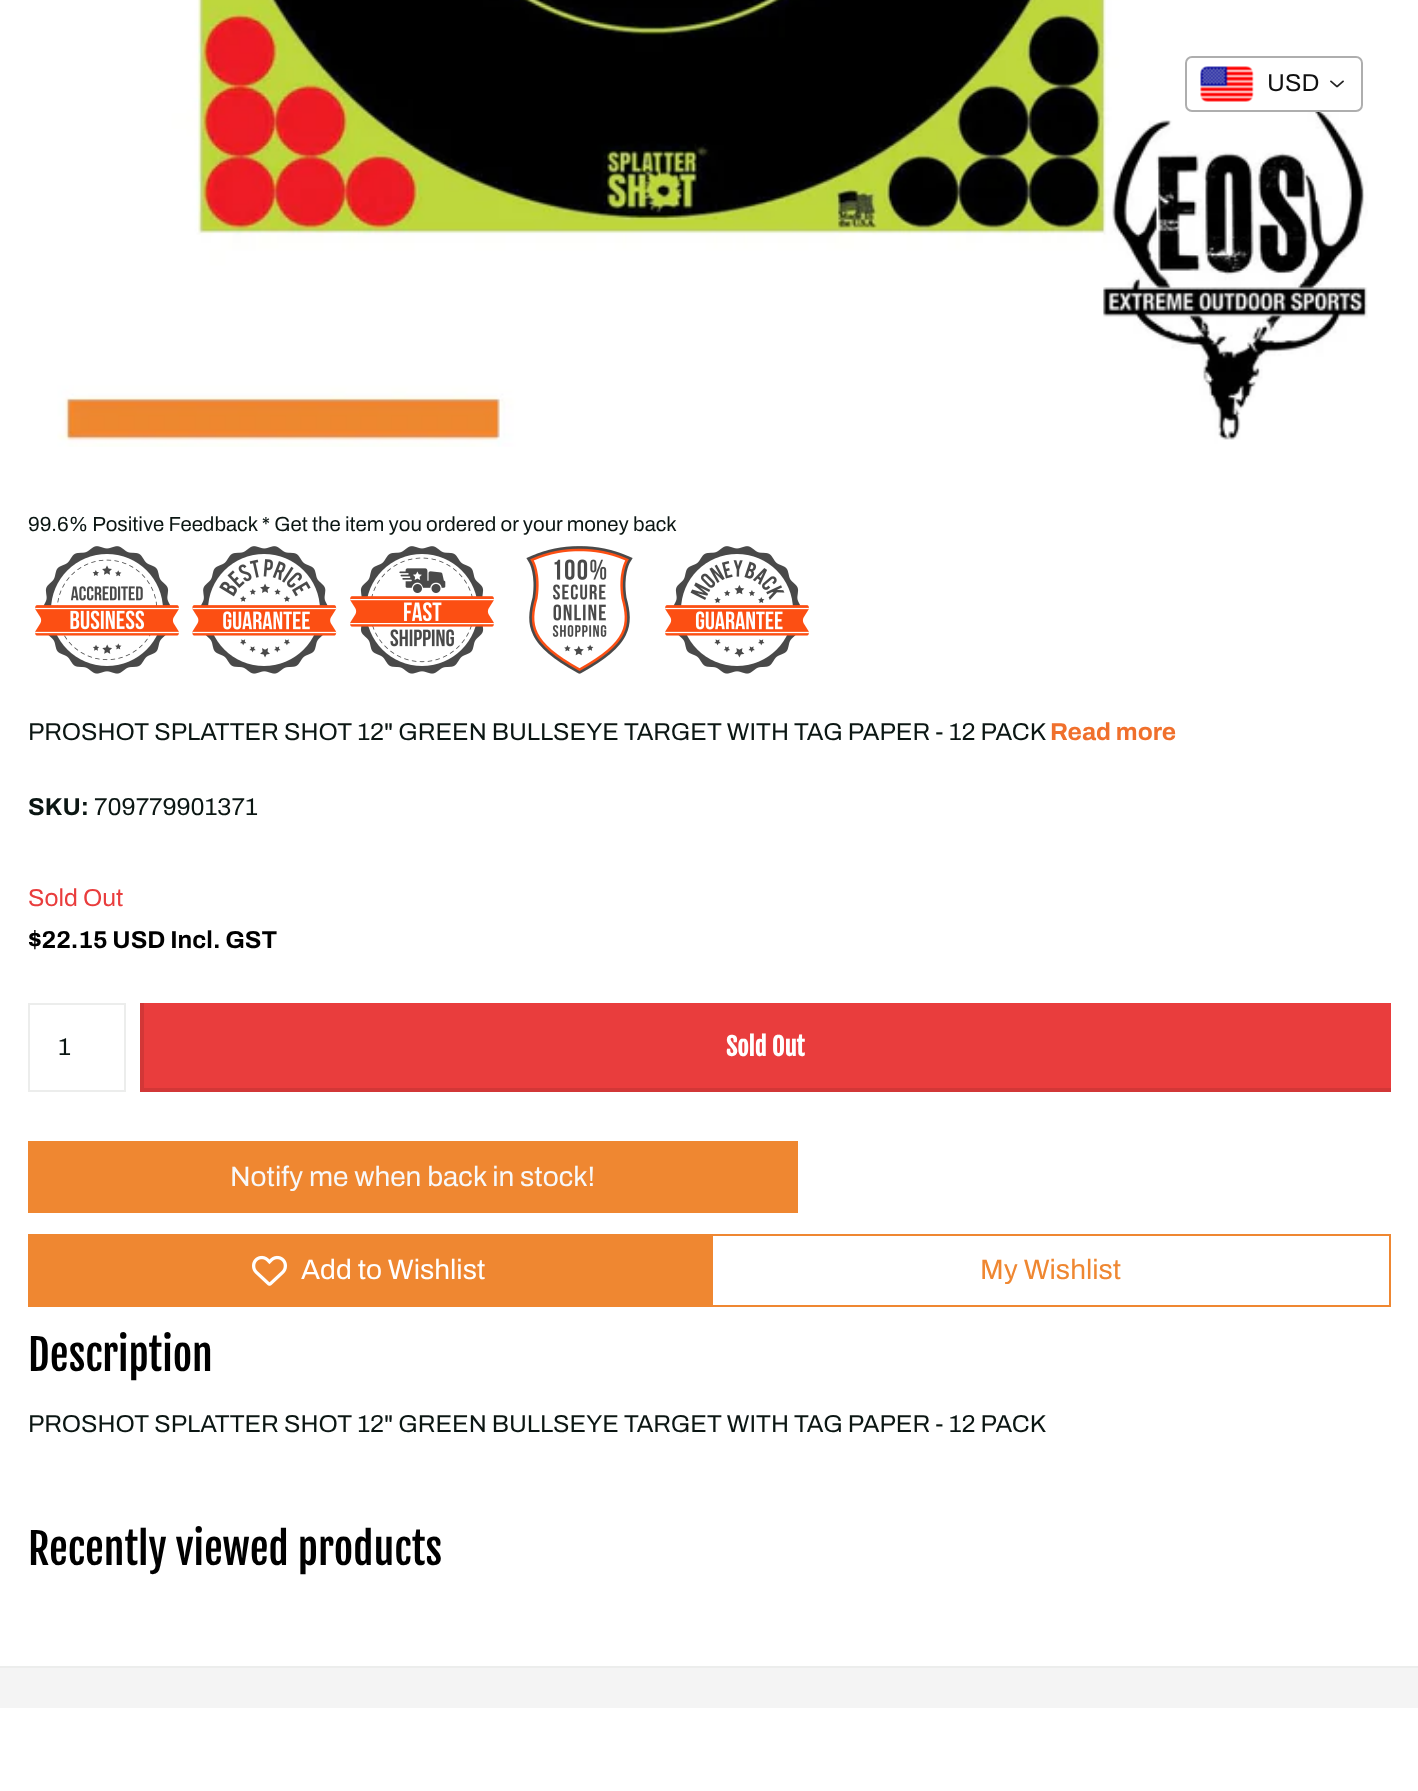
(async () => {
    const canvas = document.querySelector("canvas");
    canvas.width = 1418;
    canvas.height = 1791;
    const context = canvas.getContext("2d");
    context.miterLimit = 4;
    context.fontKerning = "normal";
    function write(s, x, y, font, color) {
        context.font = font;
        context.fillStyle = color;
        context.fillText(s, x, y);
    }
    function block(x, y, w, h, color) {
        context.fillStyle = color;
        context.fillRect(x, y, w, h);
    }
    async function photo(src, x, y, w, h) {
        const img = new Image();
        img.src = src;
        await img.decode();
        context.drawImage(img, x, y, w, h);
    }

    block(0, 0, 1418, 1791, "rgb(255, 255, 255)");
    await photo("media/3.png", 57, 0, 1311, 447);
    context.beginPath();
    context.roundRect(1186, 57, 176, 54, 6);
    context.fill();
    context.strokeStyle = "rgb(174, 174, 174)";
    context.lineWidth = 2;
    context.stroke();
    await photo("media/1.png", 1200, 66, 54, 36);
    write("USD", 1267, 91, "24.5px Archivo", "rgb(17, 17, 17)");
    await photo("media/2.png", 1330, 80, 14, 8);
    write("99.6% Positive Feedback * Get the item you ordered or your money back", 28, 531, "20.4px Archivo", "rgb(11, 22, 19)");
    await photo("media/4.png", 35, 546, 144, 128);
    await photo("media/5.png", 192, 546, 145, 128);
    await photo("media/6.png", 350, 546, 144, 128);
    await photo("media/7.png", 526, 546, 107, 128);
    await photo("media/8.png", 665, 546, 144, 128);
    write("PROSHOT SPLATTER SHOT 12\" GREEN BULLSEYE TARGET WITH TAG PAPER - 12 PACK", 28, 740, "24.5px Archivo", "rgb(11, 22, 19)");
    write("Read more", 1050, 740, "bold 24.5px Archivo", "rgb(240, 112, 44)");
    write("SKU:", 28, 815, "bold 24.5px Archivo", "rgb(11, 22, 19)");
    write("709779901371", 94, 815, "24.5px Archivo", "rgb(11, 22, 19)");
    write("Sold Out", 28, 906, "24.5px Archivo", "rgb(233, 61, 61)");
    write("$22.15 USD Incl. GST", 28, 948, "bold 24.5px Archivo", "rgb(0, 0, 0)");
    context.strokeStyle = "rgb(236, 237, 236)";
    context.strokeRect(29, 1004, 96, 87);
    write("1", 58, 1055, "24.5px Archivo", "rgb(11, 22, 19)");
    block(144, 1003, 1247, 85, "rgb(233, 61, 61)");
    context.save();
    context.beginPath();
    context.rect(140, 1003, 1251, 89);
    context.clip();
    context.fillStyle = "rgb(210, 55, 55)";
    context.beginPath();
    context.moveTo(-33, 830);
    context.lineTo(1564, 830);
    context.lineTo(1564, 1265);
    context.lineTo(-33, 1265);
    context.closePath();
    context.moveTo(144, 999);
    context.lineTo(1395, 999);
    context.lineTo(1395, 1088);
    context.lineTo(144, 1088);
    context.closePath();
    context.fill("evenodd");
    context.restore();
    write("Sold Out", 726, 1056, "bold 24.5px Fjalla One", "rgb(255, 255, 255)");
    block(28, 1141, 770, 72, "rgb(239, 135, 49)");
    write("Notify me when back in stock!", 230, 1186, "28px Archivo", "rgb(248, 248, 248)");
    block(28, 1234, 683, 73, "rgb(239, 135, 49)");
    await photo("media/9.png", 252, 1255, 35, 31);
    write("Add to Wishlist", 301, 1279, "28px Archivo", "rgb(255, 255, 255)");
    context.strokeStyle = "rgb(239, 135, 49)";
    context.strokeRect(712, 1235, 678, 71);
    write("My Wishlist", 980, 1279, "28px Archivo", "rgb(239, 135, 49)");
    write("Description", 28, 1371, "42px Fjalla One", "rgb(0, 0, 0)");
    write("PROSHOT SPLATTER SHOT 12\" GREEN BULLSEYE TARGET WITH TAG PAPER - 12 PACK", 28, 1432, "24.5px Archivo", "rgb(11, 22, 19)");
    write("Recently viewed products", 28, 1565, "42px Fjalla One", "rgb(0, 0, 0)");
    block(0, 1668, 1418, 40, "rgb(244, 244, 244)");
    block(0, 1666, 1418, 2, "rgb(236, 237, 236)");
})();
